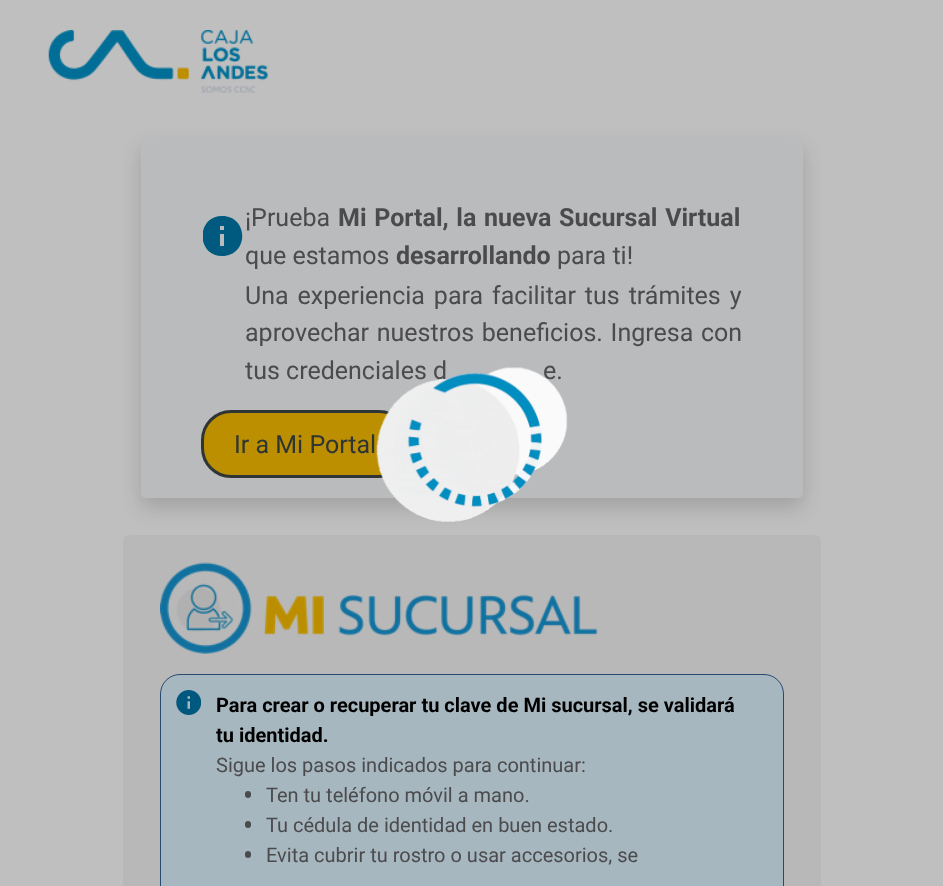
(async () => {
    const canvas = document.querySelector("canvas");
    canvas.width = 943;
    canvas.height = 886;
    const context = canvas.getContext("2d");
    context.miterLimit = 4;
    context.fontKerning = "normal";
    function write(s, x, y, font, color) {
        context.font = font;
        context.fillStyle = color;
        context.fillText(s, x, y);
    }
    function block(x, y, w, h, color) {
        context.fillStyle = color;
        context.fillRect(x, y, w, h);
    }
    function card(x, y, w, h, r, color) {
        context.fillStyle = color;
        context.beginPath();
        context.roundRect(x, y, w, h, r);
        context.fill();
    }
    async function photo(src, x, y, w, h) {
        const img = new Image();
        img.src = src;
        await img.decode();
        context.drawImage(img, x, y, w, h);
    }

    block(0, 0, 943, 886, "rgb(191, 191, 191)");
    await photo("media/1.png", 48, 30, 220, 63);
    context.fillStyle = "rgba(0, 0, 0, 0.15)";
    context.filter = "blur(10px)";
    context.beginPath();
    context.roundRect(141, 148, 662, 360, 5);
    context.fill();
    context.filter = "none";
    card(141, 138, 662, 360, 5, "rgb(186, 187, 188)");
    context.save();
    context.beginPath();
    context.rect(203, 216, 40, 40);
    context.clip();
    context.fillStyle = "rgb(0, 89, 127)";
    context.beginPath();
    context.moveTo(222, 216);
    context.bezierCurveTo(196, 216, 196, 256, 222, 256);
    context.bezierCurveTo(249, 256, 249, 216, 222, 216);
    context.closePath();
    context.moveTo(224, 246);
    context.lineTo(220, 246);
    context.lineTo(220, 234);
    context.lineTo(224, 234);
    context.closePath();
    context.moveTo(224, 230);
    context.lineTo(220, 230);
    context.lineTo(220, 226);
    context.lineTo(224, 226);
    context.closePath();
    context.fill();
    context.restore();
    write("¡Prueba", 245, 226, "25px Roboto", "rgb(75, 75, 77)");
    context.wordSpacing = "1.5px";
    write("Mi Portal, la nueva Sucursal Virtual", 338, 226, "bold 25px Roboto", "rgb(75, 75, 77)");
    context.wordSpacing = "0px";
    write("que estamos", 245, 264, "25px Roboto", "rgb(75, 75, 77)");
    write("desarrollando", 396, 264, "bold 25px Roboto", "rgb(75, 75, 77)");
    write("para ti!", 557, 264, "25px Roboto", "rgb(75, 75, 77)");
    context.wordSpacing = "2.75px";
    write("Una experiencia para facilitar tus trámites y", 245, 304, "25px Roboto", "rgb(75, 75, 77)");
    context.wordSpacing = "1.5px";
    write("aprovechar nuestros beneficios. Ingresa con", 245, 341, "25px Roboto", "rgb(75, 75, 77)");
    context.wordSpacing = "0px";
    write("tus credenciales d", 245, 379, "25px Roboto", "rgb(75, 75, 77)");
    write("e.", 543, 379, "25px Roboto", "rgb(75, 75, 77)");
    context.fillStyle = "rgb(187, 143, 0)";
    context.beginPath();
    context.roundRect(202.5, 411.5, 205, 65, 28.5);
    context.fill();
    context.strokeStyle = "rgb(47, 52, 52)";
    context.lineWidth = 3;
    context.stroke();
    write("Ir a Mi Portal", 234, 453, "25px Roboto", "rgb(47, 52, 52)");
    card(123, 535, 698, 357, 6, "rgb(184, 184, 184)");
    await photo("media/2.png", 160, 562, 438, 92);
    context.fillStyle = "rgb(167, 183, 191)";
    context.beginPath();
    context.roundRect(160.5, 674.5, 623, 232, 19.5);
    context.fill();
    context.strokeStyle = "rgb(38, 74, 112)";
    context.lineWidth = 1;
    context.stroke();
    await photo("media/3.png", 176, 690, 25, 25);
    write("Para crear o recuperar tu clave de Mi sucursal, se validará", 216, 712, "bold 20px Roboto", "rgb(0, 0, 0)");
    write("tu identidad.", 216, 742, "bold 20px Roboto", "rgb(0, 0, 0)");
    write("Sigue los pasos indicados para continuar:", 216, 772, "20px Roboto", "rgb(75, 75, 77)");
    card(245, 791, 6, 7, 3, "rgb(75, 75, 77)");
    write("Ten tu teléfono móvil a mano.", 266, 802, "20px Roboto", "rgb(75, 75, 77)");
    card(245, 821, 6, 7, 3, "rgb(75, 75, 77)");
    write("Tu cédula de identidad en buen estado.", 266, 832, "20px Roboto", "rgb(75, 75, 77)");
    card(245, 851, 6, 7, 3, "rgb(75, 75, 77)");
    write("Evita cubrir tu rostro o usar accesorios, se", 266, 862, "20px Roboto", "rgb(75, 75, 77)");
    await photo("media/4.png", 376, 367, 192, 155);
})();
